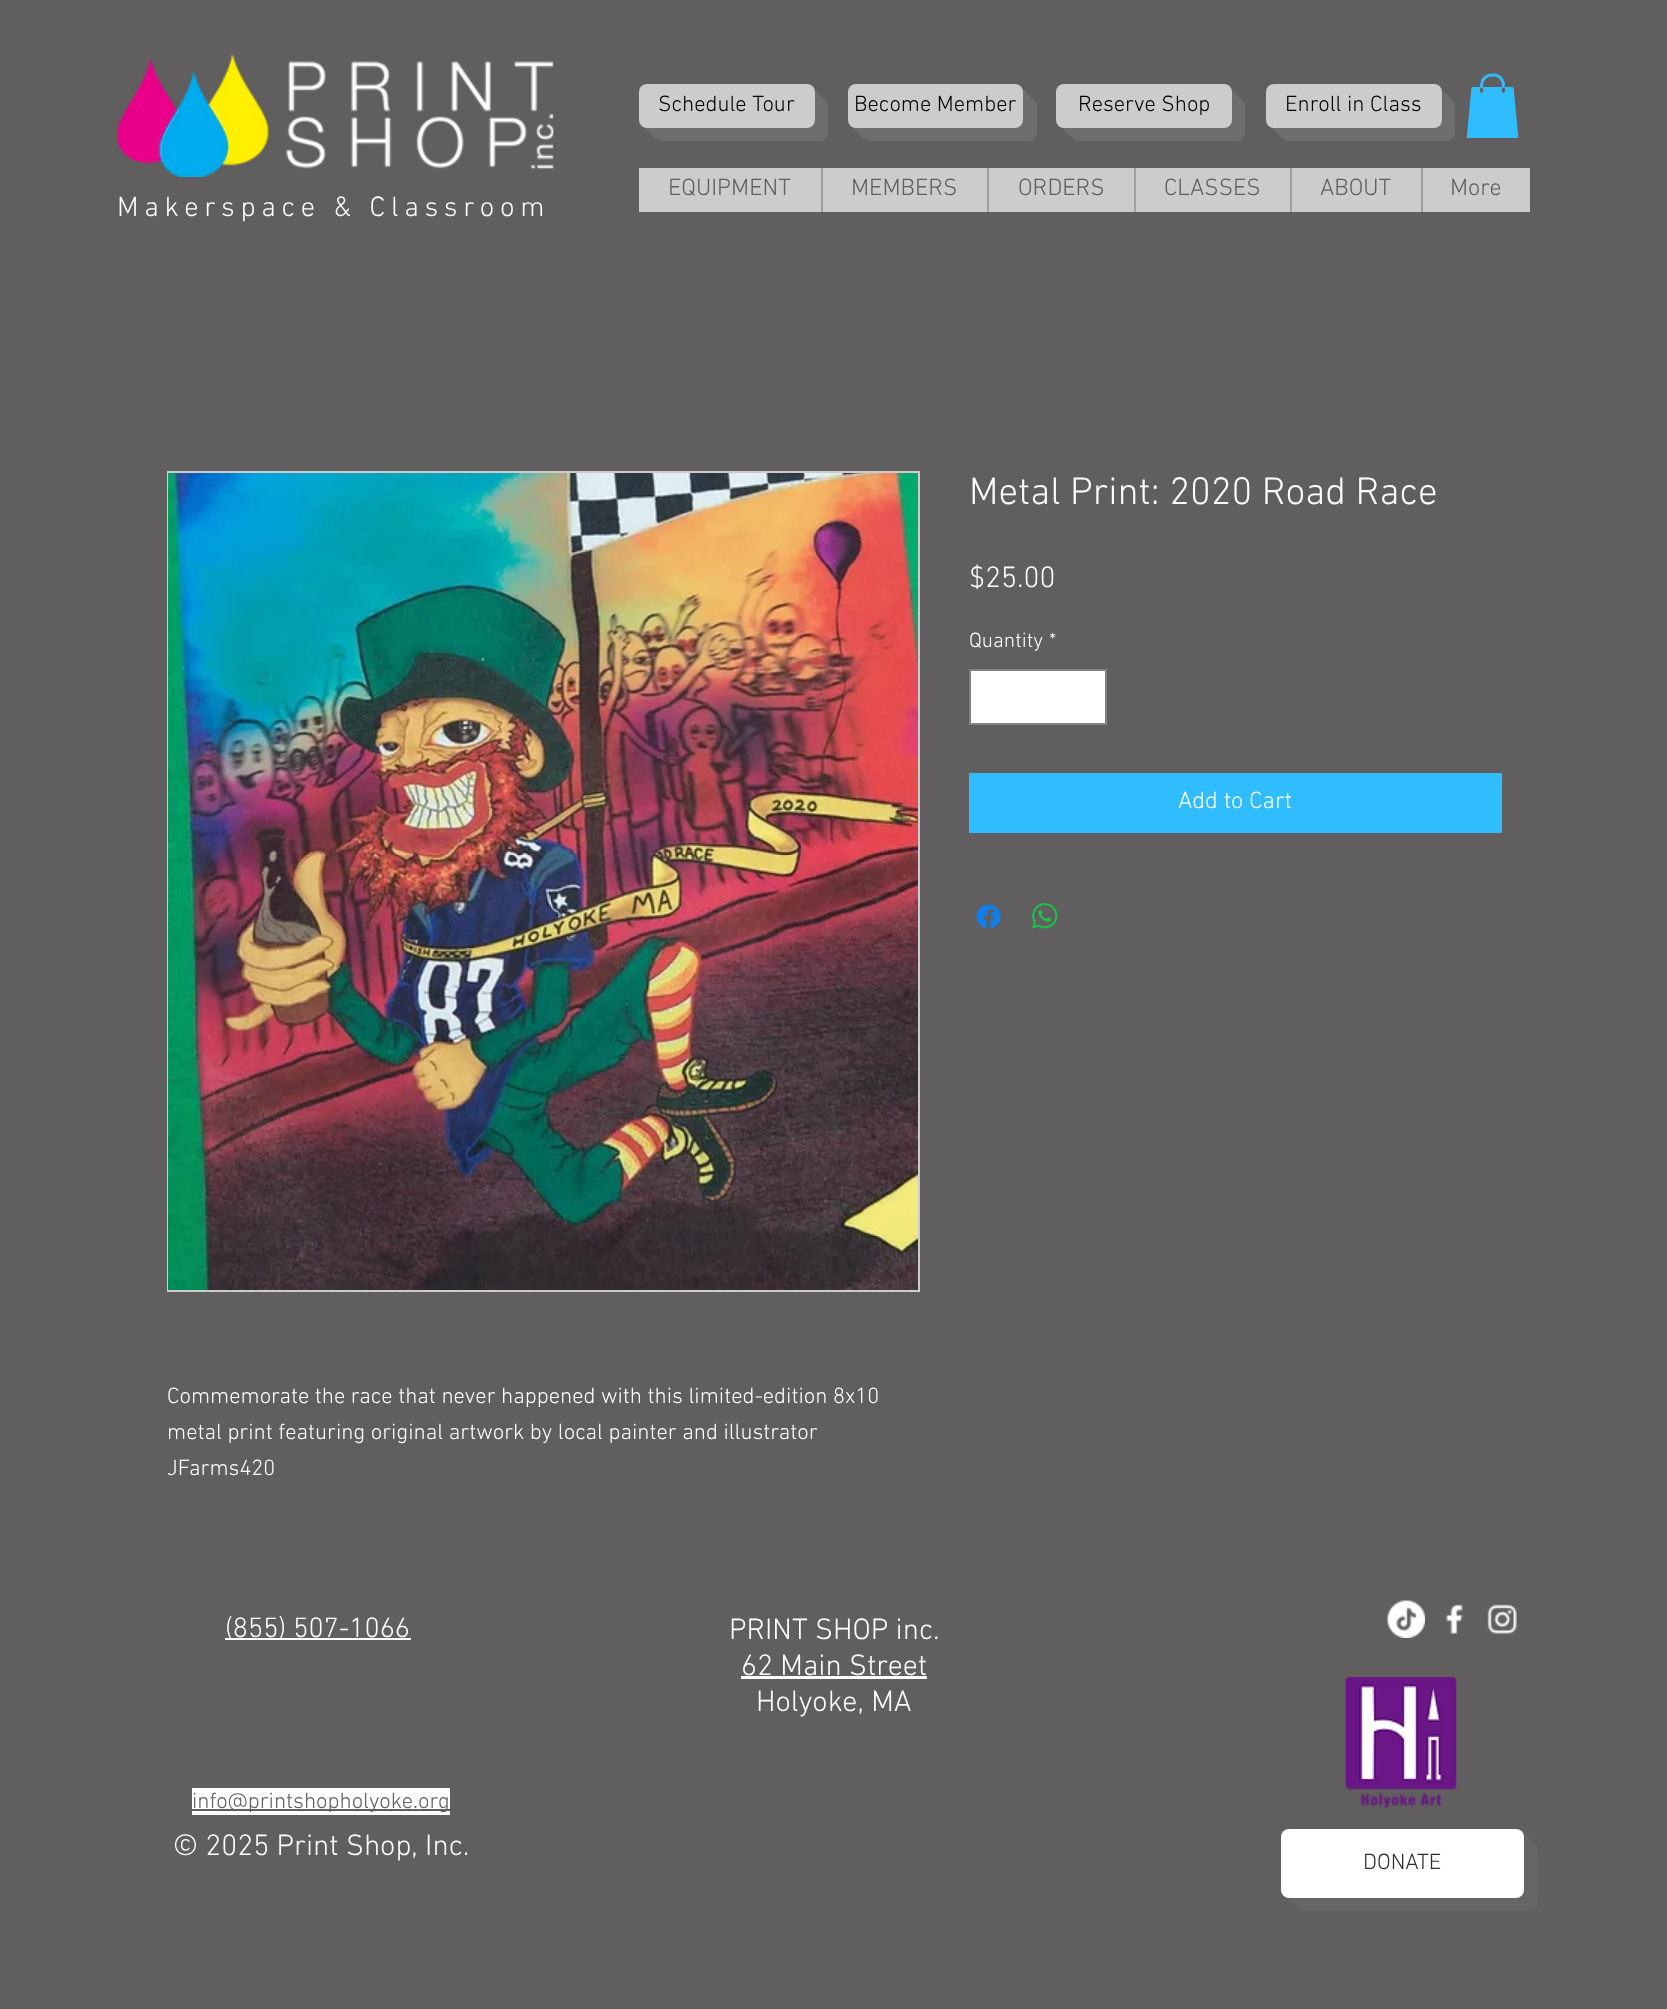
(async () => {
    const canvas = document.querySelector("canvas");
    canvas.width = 1667;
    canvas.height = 2009;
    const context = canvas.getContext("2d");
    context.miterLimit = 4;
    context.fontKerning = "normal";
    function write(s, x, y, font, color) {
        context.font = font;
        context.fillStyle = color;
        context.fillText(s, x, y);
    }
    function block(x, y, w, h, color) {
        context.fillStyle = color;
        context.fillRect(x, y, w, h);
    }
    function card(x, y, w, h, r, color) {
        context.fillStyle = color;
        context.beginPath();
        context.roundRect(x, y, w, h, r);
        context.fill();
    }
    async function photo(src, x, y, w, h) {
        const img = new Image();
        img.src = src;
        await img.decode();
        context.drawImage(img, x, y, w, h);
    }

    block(0, 0, 1667, 2009, "rgb(96, 94, 94)");
    await photo("media/1.png", 117, 54, 437, 123);
    context.fillStyle = "rgb(110, 110, 110)";
    context.beginPath();
    context.moveTo(653, 128);
    context.lineTo(653, 133);
    context.bezierCurveTo(653, 137, 657, 141, 661, 141);
    context.lineTo(820, 141);
    context.bezierCurveTo(824, 141, 828, 137, 828, 133);
    context.lineTo(828, 106);
    context.bezierCurveTo(828, 102, 824, 98, 820, 98);
    context.lineTo(814, 98);
    context.lineTo(814, 120);
    context.bezierCurveTo(814, 124, 811, 128, 807, 128);
    context.closePath();
    context.fill();
    context.beginPath();
    context.moveTo(650, 128);
    context.lineTo(650, 130);
    context.bezierCurveTo(650, 134, 654, 138, 658, 138);
    context.lineTo(817, 138);
    context.bezierCurveTo(821, 138, 825, 134, 825, 130);
    context.lineTo(825, 103);
    context.bezierCurveTo(825, 99, 821, 95, 817, 95);
    context.lineTo(814, 95);
    context.lineTo(814, 120);
    context.bezierCurveTo(814, 124, 811, 128, 807, 128);
    context.closePath();
    context.fill();
    context.beginPath();
    context.moveTo(647, 128);
    context.bezierCurveTo(647, 132, 651, 135, 655, 135);
    context.lineTo(814, 135);
    context.bezierCurveTo(818, 135, 822, 131, 822, 127);
    context.lineTo(822, 100);
    context.bezierCurveTo(822, 96, 819, 92, 814, 92);
    context.lineTo(814, 120);
    context.bezierCurveTo(814, 124, 811, 128, 807, 128);
    context.closePath();
    context.fill();
    context.beginPath();
    context.moveTo(645, 127);
    context.bezierCurveTo(646, 130, 649, 132, 652, 132);
    context.lineTo(811, 132);
    context.bezierCurveTo(815, 132, 819, 128, 819, 124);
    context.lineTo(819, 97);
    context.bezierCurveTo(819, 94, 817, 91, 814, 90);
    context.lineTo(814, 122);
    context.bezierCurveTo(812, 132, 791, 128, 780, 128);
    context.closePath();
    context.fill();
    context.beginPath();
    context.moveTo(644, 127);
    context.bezierCurveTo(645, 128, 647, 129, 649, 129);
    context.lineTo(808, 129);
    context.bezierCurveTo(812, 129, 816, 125, 816, 121);
    context.lineTo(816, 94);
    context.bezierCurveTo(816, 92, 815, 90, 814, 89);
    context.lineTo(814, 92);
    context.lineTo(814, 120);
    context.bezierCurveTo(814, 124, 811, 128, 807, 128);
    context.lineTo(646, 128);
    context.closePath();
    context.fill();
    card(639, 84, 176, 44, 8, "rgb(204, 204, 204)");
    write("Schedule Tour", 658, 111, "300 22.5px 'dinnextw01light'", "rgb(0, 0, 0)");
    context.fillStyle = "rgb(110, 110, 110)";
    context.beginPath();
    context.moveTo(861, 128);
    context.lineTo(861, 133);
    context.bezierCurveTo(861, 137, 865, 141, 869, 141);
    context.lineTo(1029, 141);
    context.bezierCurveTo(1033, 141, 1037, 137, 1037, 133);
    context.lineTo(1037, 106);
    context.bezierCurveTo(1037, 102, 1033, 98, 1029, 98);
    context.lineTo(1023, 98);
    context.lineTo(1023, 120);
    context.bezierCurveTo(1023, 124, 1020, 128, 1016, 128);
    context.closePath();
    context.fill();
    context.beginPath();
    context.moveTo(858, 128);
    context.lineTo(858, 130);
    context.bezierCurveTo(858, 134, 862, 138, 866, 138);
    context.lineTo(1026, 138);
    context.bezierCurveTo(1030, 138, 1034, 134, 1034, 130);
    context.lineTo(1034, 103);
    context.bezierCurveTo(1034, 99, 1030, 95, 1026, 95);
    context.lineTo(1023, 95);
    context.lineTo(1023, 120);
    context.bezierCurveTo(1023, 124, 1020, 128, 1016, 128);
    context.closePath();
    context.fill();
    context.beginPath();
    context.moveTo(855, 128);
    context.bezierCurveTo(855, 132, 859, 135, 863, 135);
    context.lineTo(1023, 135);
    context.bezierCurveTo(1027, 135, 1031, 131, 1031, 127);
    context.lineTo(1031, 100);
    context.bezierCurveTo(1031, 96, 1027, 92, 1023, 92);
    context.lineTo(1023, 120);
    context.bezierCurveTo(1023, 124, 1020, 128, 1016, 128);
    context.closePath();
    context.fill();
    context.beginPath();
    context.moveTo(853, 127);
    context.lineTo(855, 130);
    context.lineTo(859, 132);
    context.lineTo(1020, 132);
    context.bezierCurveTo(1028, 132, 1028, 125, 1028, 120);
    context.lineTo(1028, 106);
    context.bezierCurveTo(1028, 100, 1030, 92, 1023, 89);
    context.lineTo(1023, 122);
    context.bezierCurveTo(1021, 132, 999, 128, 989, 128);
    context.lineTo(882, 128);
    context.bezierCurveTo(872, 128, 862, 130, 853, 127);
    context.closePath();
    context.fill();
    context.beginPath();
    context.moveTo(851, 126);
    context.bezierCurveTo(853, 128, 855, 129, 857, 129);
    context.lineTo(1017, 129);
    context.bezierCurveTo(1021, 129, 1025, 125, 1025, 121);
    context.lineTo(1025, 94);
    context.bezierCurveTo(1025, 91, 1024, 89, 1022, 88);
    context.bezierCurveTo(1023, 89, 1023, 90, 1023, 92);
    context.lineTo(1023, 120);
    context.bezierCurveTo(1023, 124, 1020, 128, 1016, 128);
    context.lineTo(855, 128);
    context.bezierCurveTo(854, 128, 852, 127, 851, 126);
    context.closePath();
    context.fill();
    card(848, 84, 175, 44, 8, "rgb(204, 204, 204)");
    write("Become Member", 854, 111, "300 22.5px 'dinnextw01light'", "rgb(0, 0, 0)");
    context.fillStyle = "rgb(110, 110, 110)";
    context.beginPath();
    context.moveTo(1070, 128);
    context.lineTo(1070, 133);
    context.bezierCurveTo(1070, 137, 1074, 141, 1078, 141);
    context.lineTo(1237, 141);
    context.bezierCurveTo(1241, 141, 1245, 137, 1245, 133);
    context.lineTo(1245, 106);
    context.bezierCurveTo(1245, 102, 1241, 98, 1237, 98);
    context.lineTo(1232, 98);
    context.lineTo(1232, 120);
    context.bezierCurveTo(1232, 124, 1228, 128, 1224, 128);
    context.closePath();
    context.fill();
    context.beginPath();
    context.moveTo(1067, 128);
    context.lineTo(1067, 130);
    context.bezierCurveTo(1067, 134, 1071, 138, 1075, 138);
    context.lineTo(1234, 138);
    context.bezierCurveTo(1238, 138, 1242, 134, 1242, 130);
    context.lineTo(1242, 103);
    context.bezierCurveTo(1242, 99, 1238, 95, 1234, 95);
    context.lineTo(1232, 95);
    context.lineTo(1232, 120);
    context.bezierCurveTo(1232, 124, 1228, 128, 1224, 128);
    context.closePath();
    context.fill();
    context.beginPath();
    context.moveTo(1064, 128);
    context.bezierCurveTo(1064, 132, 1068, 135, 1072, 135);
    context.lineTo(1231, 135);
    context.bezierCurveTo(1235, 135, 1239, 131, 1239, 127);
    context.lineTo(1239, 100);
    context.bezierCurveTo(1239, 96, 1236, 92, 1232, 92);
    context.lineTo(1232, 120);
    context.bezierCurveTo(1232, 124, 1228, 128, 1224, 128);
    context.closePath();
    context.fill();
    context.beginPath();
    context.moveTo(1062, 127);
    context.bezierCurveTo(1063, 130, 1066, 132, 1069, 132);
    context.lineTo(1228, 132);
    context.bezierCurveTo(1232, 132, 1236, 128, 1236, 124);
    context.lineTo(1236, 97);
    context.bezierCurveTo(1236, 94, 1234, 91, 1231, 90);
    context.lineTo(1231, 122);
    context.bezierCurveTo(1229, 132, 1208, 128, 1197, 128);
    context.closePath();
    context.fill();
    context.beginPath();
    context.moveTo(1061, 127);
    context.bezierCurveTo(1062, 128, 1064, 129, 1066, 129);
    context.lineTo(1225, 129);
    context.bezierCurveTo(1229, 129, 1233, 125, 1233, 121);
    context.lineTo(1233, 94);
    context.bezierCurveTo(1233, 92, 1232, 90, 1231, 89);
    context.lineTo(1232, 92);
    context.lineTo(1232, 120);
    context.bezierCurveTo(1232, 124, 1228, 128, 1224, 128);
    context.lineTo(1064, 128);
    context.closePath();
    context.fill();
    card(1056, 84, 176, 44, 8, "rgb(204, 204, 204)");
    write("Reserve Shop", 1078, 111, "300 22.5px 'dinnextw01light'", "rgb(0, 0, 0)");
    context.fillStyle = "rgb(110, 110, 110)";
    context.beginPath();
    context.moveTo(1280, 128);
    context.lineTo(1280, 133);
    context.bezierCurveTo(1280, 137, 1284, 141, 1288, 141);
    context.lineTo(1447, 141);
    context.bezierCurveTo(1451, 141, 1455, 137, 1455, 133);
    context.lineTo(1455, 106);
    context.bezierCurveTo(1455, 102, 1451, 98, 1447, 98);
    context.lineTo(1442, 98);
    context.lineTo(1442, 120);
    context.bezierCurveTo(1442, 124, 1438, 128, 1434, 128);
    context.closePath();
    context.fill();
    context.beginPath();
    context.moveTo(1277, 128);
    context.lineTo(1277, 130);
    context.bezierCurveTo(1277, 134, 1281, 138, 1285, 138);
    context.lineTo(1444, 138);
    context.bezierCurveTo(1448, 138, 1452, 134, 1452, 130);
    context.lineTo(1452, 103);
    context.bezierCurveTo(1452, 99, 1448, 95, 1444, 95);
    context.lineTo(1442, 95);
    context.lineTo(1442, 120);
    context.bezierCurveTo(1442, 124, 1438, 128, 1434, 128);
    context.closePath();
    context.fill();
    context.beginPath();
    context.moveTo(1274, 128);
    context.bezierCurveTo(1274, 132, 1278, 135, 1282, 135);
    context.lineTo(1441, 135);
    context.bezierCurveTo(1445, 135, 1449, 131, 1449, 127);
    context.lineTo(1449, 100);
    context.bezierCurveTo(1449, 96, 1446, 92, 1442, 92);
    context.lineTo(1442, 120);
    context.bezierCurveTo(1442, 124, 1438, 128, 1434, 128);
    context.closePath();
    context.fill();
    context.beginPath();
    context.moveTo(1272, 127);
    context.bezierCurveTo(1273, 130, 1276, 132, 1279, 132);
    context.lineTo(1438, 132);
    context.bezierCurveTo(1442, 132, 1446, 128, 1446, 124);
    context.lineTo(1446, 97);
    context.bezierCurveTo(1446, 94, 1444, 91, 1441, 90);
    context.lineTo(1441, 122);
    context.bezierCurveTo(1439, 132, 1418, 128, 1407, 128);
    context.closePath();
    context.fill();
    context.beginPath();
    context.moveTo(1271, 127);
    context.bezierCurveTo(1272, 128, 1274, 129, 1276, 129);
    context.lineTo(1435, 129);
    context.bezierCurveTo(1439, 129, 1443, 125, 1443, 121);
    context.lineTo(1443, 94);
    context.bezierCurveTo(1443, 92, 1442, 90, 1441, 89);
    context.lineTo(1442, 92);
    context.lineTo(1442, 120);
    context.bezierCurveTo(1442, 124, 1438, 128, 1434, 128);
    context.lineTo(1274, 128);
    context.closePath();
    context.fill();
    card(1266, 84, 176, 44, 8, "rgb(204, 204, 204)");
    write("Enroll in Class", 1285, 111, "300 22.5px 'dinnextw01light'", "rgb(0, 0, 0)");
    await photo("media/2.png", 1466, 73, 53, 65);
    block(639, 168, 891, 44, "rgb(204, 204, 204)");
    write("EQUIPMENT", 668, 195, "300 24px 'dinnextw01light'", "rgb(96, 94, 94)");
    block(821, 168, 2, 44, "rgb(160, 160, 159)");
    write("MEMBERS", 851, 195, "300 24px 'dinnextw01light'", "rgb(96, 94, 94)");
    block(987, 168, 2, 44, "rgb(160, 160, 159)");
    write("ORDERS", 1018, 195, "300 24px 'dinnextw01light'", "rgb(96, 94, 94)");
    block(1134, 168, 2, 44, "rgb(160, 160, 159)");
    write("CLASSES", 1164, 195, "300 24px 'dinnextw01light'", "rgb(96, 94, 94)");
    block(1290, 168, 2, 44, "rgb(160, 160, 159)");
    write("ABOUT", 1320, 195, "300 24px 'dinnextw01light'", "rgb(96, 94, 94)");
    block(1421, 168, 2, 44, "rgb(160, 160, 159)");
    write("More", 1450, 195, "300 24px 'dinnextw01light'", "rgb(96, 94, 94)");
    context.letterSpacing = "5.7px";
    write("Makerspace & Classroom", 117, 216, "300 28.5px 'dinnextw01light'", "rgb(255, 255, 255)");
    context.letterSpacing = "0px";
    write("Metal Print: 2020 Road Race", 969, 504, "300 39px 'dinnextw01light'", "rgb(255, 255, 255)");
    write("$25.00", 969, 587, "300 30px 'dinnextw01light'", "rgb(255, 255, 255)");
    write("Quantity", 969, 647, "300 21px 'dinnextw01light'", "rgb(255, 255, 255)");
    write("*", 1049, 647, "300 21px 'dinnextw01light'", "rgb(255, 255, 255)");
    context.beginPath();
    context.rect(970, 670, 136, 54);
    context.fill();
    context.strokeStyle = "rgb(130, 130, 130)";
    context.lineWidth = 2;
    context.stroke();
    block(969, 773, 533, 60, "rgb(48, 189, 255)");
    write("Add to Cart", 1178, 808, "300 24px 'dinnextw01light'", "rgb(255, 255, 255)");
    await photo("media/3.png", 976, 904, 25, 25);
    await photo("media/4.png", 1032, 903, 26, 26);
    context.strokeStyle = "rgb(204, 204, 204)";
    context.strokeRect(168, 472, 751, 819);
    await photo("media/5.png", 168, 473, 750, 817);
    write("Commemorate the race that never happened with this limited-edition 8x10", 167, 1403, "300 22.5px 'dinnextw01light'", "rgb(255, 255, 255)");
    write("metal print featuring original artwork by local painter and illustrator", 167, 1439, "300 22.5px 'dinnextw01light'", "rgb(255, 255, 255)");
    write("JFarms420", 167, 1475, "300 22.5px 'dinnextw01light'", "rgb(255, 255, 255)");
    block(225, 1638, 186, 2, "rgb(255, 255, 255)");
    write("(855) 507-1066", 225, 1637, "300 28.5px 'dinnextw01light'", "rgb(255, 255, 255)");
    write("PRINT SHOP inc.", 729, 1639, "300 30px 'dinnextw01light'", "rgb(255, 255, 255)");
    write("62 Main Street", 741, 1675, "300 30px 'dinnextw01light'", "rgb(255, 255, 255)");
    block(741, 1676, 186, 3, "rgb(255, 255, 255)");
    write("Holyoke, MA", 756, 1711, "300 30px 'dinnextw01light'", "rgb(255, 255, 255)");
    await photo("media/6.png", 1387, 1600, 38, 38);
    await photo("media/7.png", 1445, 1604, 18, 30);
    await photo("media/8.png", 1487, 1604, 30, 30);
    block(192, 1788, 258, 27, "rgb(255, 255, 255)");
    block(192, 1809, 258, 2, "rgb(96, 94, 94)");
    write("info@printshopholyoke.org", 192, 1808, "300 22.5px 'dinnextw01light'", "rgb(96, 94, 94)");
    await photo("media/9.png", 1345, 1677, 112, 131);
    write("© 2025 Print Shop, Inc.", 173, 1855, "300 30px 'dinnextw01light'", "rgb(255, 255, 255)");
    context.fillStyle = "rgb(102, 102, 102)";
    context.beginPath();
    context.moveTo(1295, 1898);
    context.lineTo(1295, 1903);
    context.bezierCurveTo(1295, 1907, 1299, 1911, 1303, 1911);
    context.lineTo(1530, 1911);
    context.bezierCurveTo(1534, 1911, 1538, 1907, 1538, 1903);
    context.lineTo(1538, 1850);
    context.bezierCurveTo(1538, 1846, 1534, 1842, 1530, 1842);
    context.lineTo(1524, 1842);
    context.lineTo(1524, 1890);
    context.bezierCurveTo(1524, 1894, 1521, 1898, 1516, 1898);
    context.closePath();
    context.fill();
    context.beginPath();
    context.moveTo(1292, 1898);
    context.lineTo(1292, 1900);
    context.bezierCurveTo(1292, 1904, 1296, 1908, 1300, 1908);
    context.lineTo(1527, 1908);
    context.bezierCurveTo(1531, 1908, 1535, 1904, 1535, 1900);
    context.lineTo(1535, 1847);
    context.bezierCurveTo(1535, 1843, 1531, 1839, 1527, 1839);
    context.lineTo(1524, 1839);
    context.lineTo(1524, 1890);
    context.bezierCurveTo(1524, 1894, 1521, 1898, 1516, 1898);
    context.closePath();
    context.fill();
    context.beginPath();
    context.moveTo(1289, 1898);
    context.bezierCurveTo(1289, 1902, 1293, 1905, 1297, 1905);
    context.lineTo(1524, 1905);
    context.bezierCurveTo(1528, 1905, 1532, 1901, 1532, 1897);
    context.lineTo(1532, 1844);
    context.bezierCurveTo(1532, 1840, 1528, 1836, 1524, 1836);
    context.lineTo(1524, 1890);
    context.bezierCurveTo(1524, 1894, 1521, 1898, 1516, 1898);
    context.closePath();
    context.fill();
    context.beginPath();
    context.moveTo(1287, 1897);
    context.bezierCurveTo(1288, 1900, 1291, 1902, 1294, 1902);
    context.lineTo(1521, 1902);
    context.bezierCurveTo(1525, 1902, 1529, 1898, 1529, 1894);
    context.lineTo(1529, 1841);
    context.bezierCurveTo(1529, 1837, 1527, 1834, 1524, 1833);
    context.lineTo(1524, 1836);
    context.lineTo(1524, 1890);
    context.bezierCurveTo(1524, 1894, 1521, 1898, 1516, 1898);
    context.closePath();
    context.fill();
    context.beginPath();
    context.moveTo(1286, 1897);
    context.bezierCurveTo(1287, 1898, 1289, 1899, 1291, 1899);
    context.lineTo(1518, 1899);
    context.bezierCurveTo(1522, 1899, 1526, 1895, 1526, 1891);
    context.lineTo(1526, 1838);
    context.bezierCurveTo(1526, 1835, 1525, 1833, 1522, 1831);
    context.bezierCurveTo(1523, 1833, 1524, 1834, 1524, 1836);
    context.lineTo(1524, 1890);
    context.bezierCurveTo(1524, 1894, 1521, 1898, 1516, 1898);
    context.lineTo(1288, 1898);
    context.closePath();
    context.fill();
    card(1281, 1829, 243, 69, 8, "rgb(255, 255, 255)");
    write("DONATE", 1363, 1869, "300 22.5px 'dinnextw01light'", "rgb(47, 46, 46)");
})();
